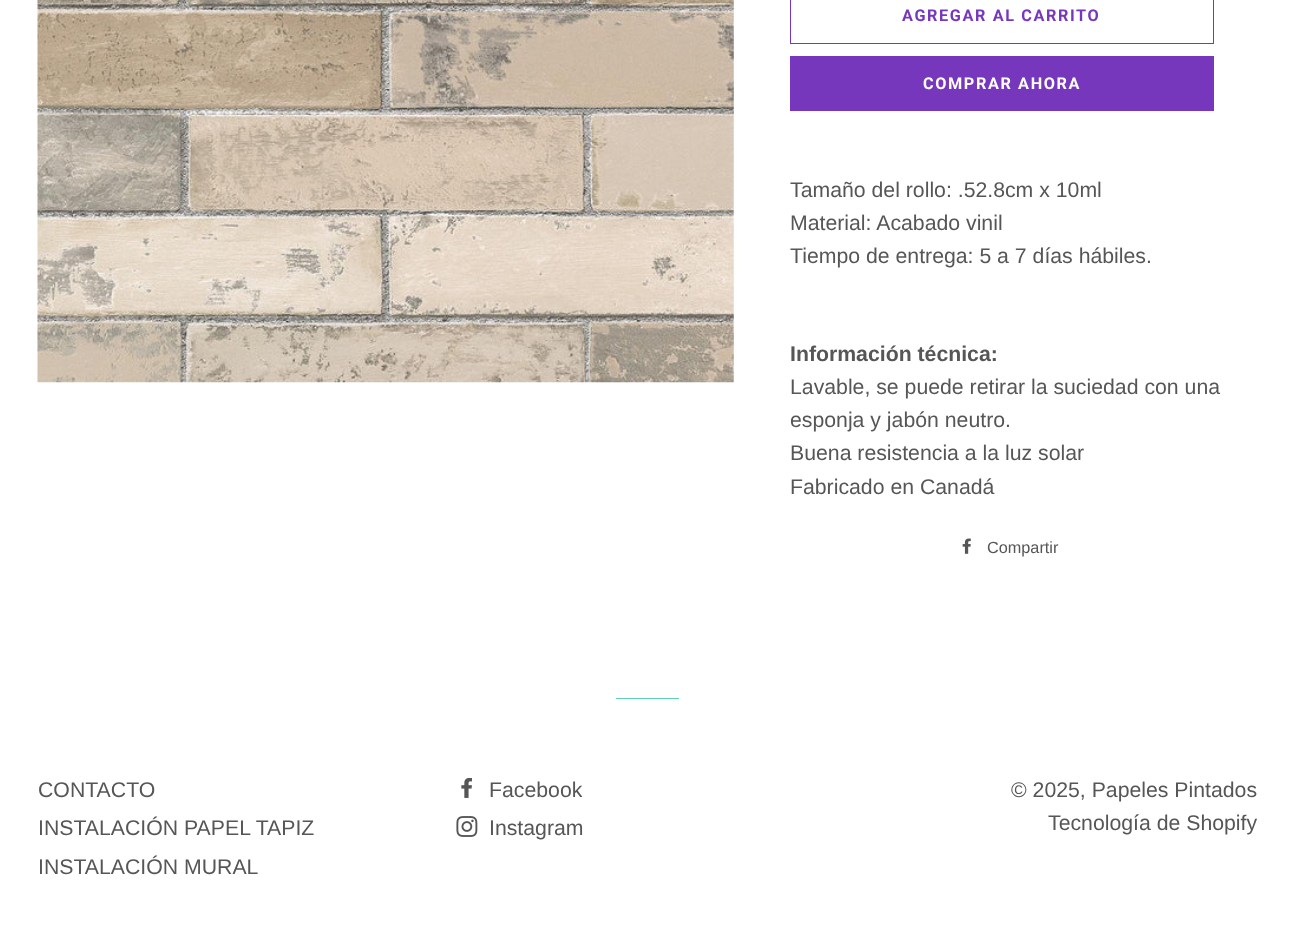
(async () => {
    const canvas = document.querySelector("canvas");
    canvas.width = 1295;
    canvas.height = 941;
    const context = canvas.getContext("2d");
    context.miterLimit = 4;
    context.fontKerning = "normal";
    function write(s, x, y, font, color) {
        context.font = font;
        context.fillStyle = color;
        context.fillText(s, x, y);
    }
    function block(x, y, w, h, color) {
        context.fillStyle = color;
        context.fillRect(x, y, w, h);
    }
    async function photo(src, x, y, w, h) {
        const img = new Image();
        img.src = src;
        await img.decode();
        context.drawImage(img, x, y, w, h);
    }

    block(0, 0, 1295, 941, "rgb(255, 255, 255)");
    await photo("media/1.png", 37, 0, 697, 383);
    context.strokeStyle = "rgb(119, 55, 189)";
    context.strokeRect(790.5, -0.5, 423, 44);
    context.letterSpacing = "1.6px";
    write("AGREGAR AL CARRITO", 902, 21, "bold 16.25px Roboto", "rgb(119, 55, 189)");
    block(790, 56, 424, 55, "rgb(119, 55, 189)");
    write("COMPRAR AHORA", 923, 89, "bold 16.25px Roboto", "rgb(255, 255, 255)");
    context.letterSpacing = "0px";
    write("Tamaño del rollo: .52.8cm x 10ml", 790, 197, "21.25px Liberation Sans", "rgb(86, 86, 86)");
    write("Material: Acabado vinil", 790, 230, "21.25px Liberation Sans", "rgb(86, 86, 86)");
    write("Tiempo de entrega: 5 a 7 días hábiles.", 790, 263, "21.25px Liberation Sans", "rgb(86, 86, 86)");
    write("Información técnica:", 790, 361, "bold 21.25px Liberation Sans", "rgb(86, 86, 86)");
    write("Lavable, se puede retirar la suciedad con una", 790, 394, "21.25px Liberation Sans", "rgb(86, 86, 86)");
    write("esponja y jabón neutro.", 790, 427, "21.25px Liberation Sans", "rgb(86, 86, 86)");
    write("Buena resistencia a la luz solar", 790, 460, "21.25px Liberation Sans", "rgb(86, 86, 86)");
    write("Fabricado en Canadá", 790, 494, "21.25px Liberation Sans", "rgb(86, 86, 86)");
    await photo("media/2.png", 962, 538, 9, 16);
    write("Compartir", 987, 553, "16.25px Liberation Sans", "rgb(86, 86, 86)");
    block(616, 698, 63, 1, "rgb(93, 210, 180)");
    write("CONTACTO", 38, 797, "21.25px Liberation Sans", "rgb(86, 86, 86)");
    write("INSTALACIÓN PAPEL TAPIZ", 38, 835, "21.25px Liberation Sans", "rgb(86, 86, 86)");
    write("INSTALACIÓN MURAL", 38, 874, "21.25px Liberation Sans", "rgb(86, 86, 86)");
    await photo("media/3.png", 461, 778, 11, 20);
    write("Facebook", 489, 797, "21.25px Liberation Sans", "rgb(86, 86, 86)");
    await photo("media/4.png", 456, 816, 22, 21);
    write("Instagram", 489, 835, "21.25px Liberation Sans", "rgb(86, 86, 86)");
    write("© 2025, Papeles Pintados", 1011, 797, "21.25px Liberation Sans", "rgb(86, 86, 86)");
    write("Tecnología de Shopify", 1048, 830, "21.25px Liberation Sans", "rgb(86, 86, 86)");
})();
